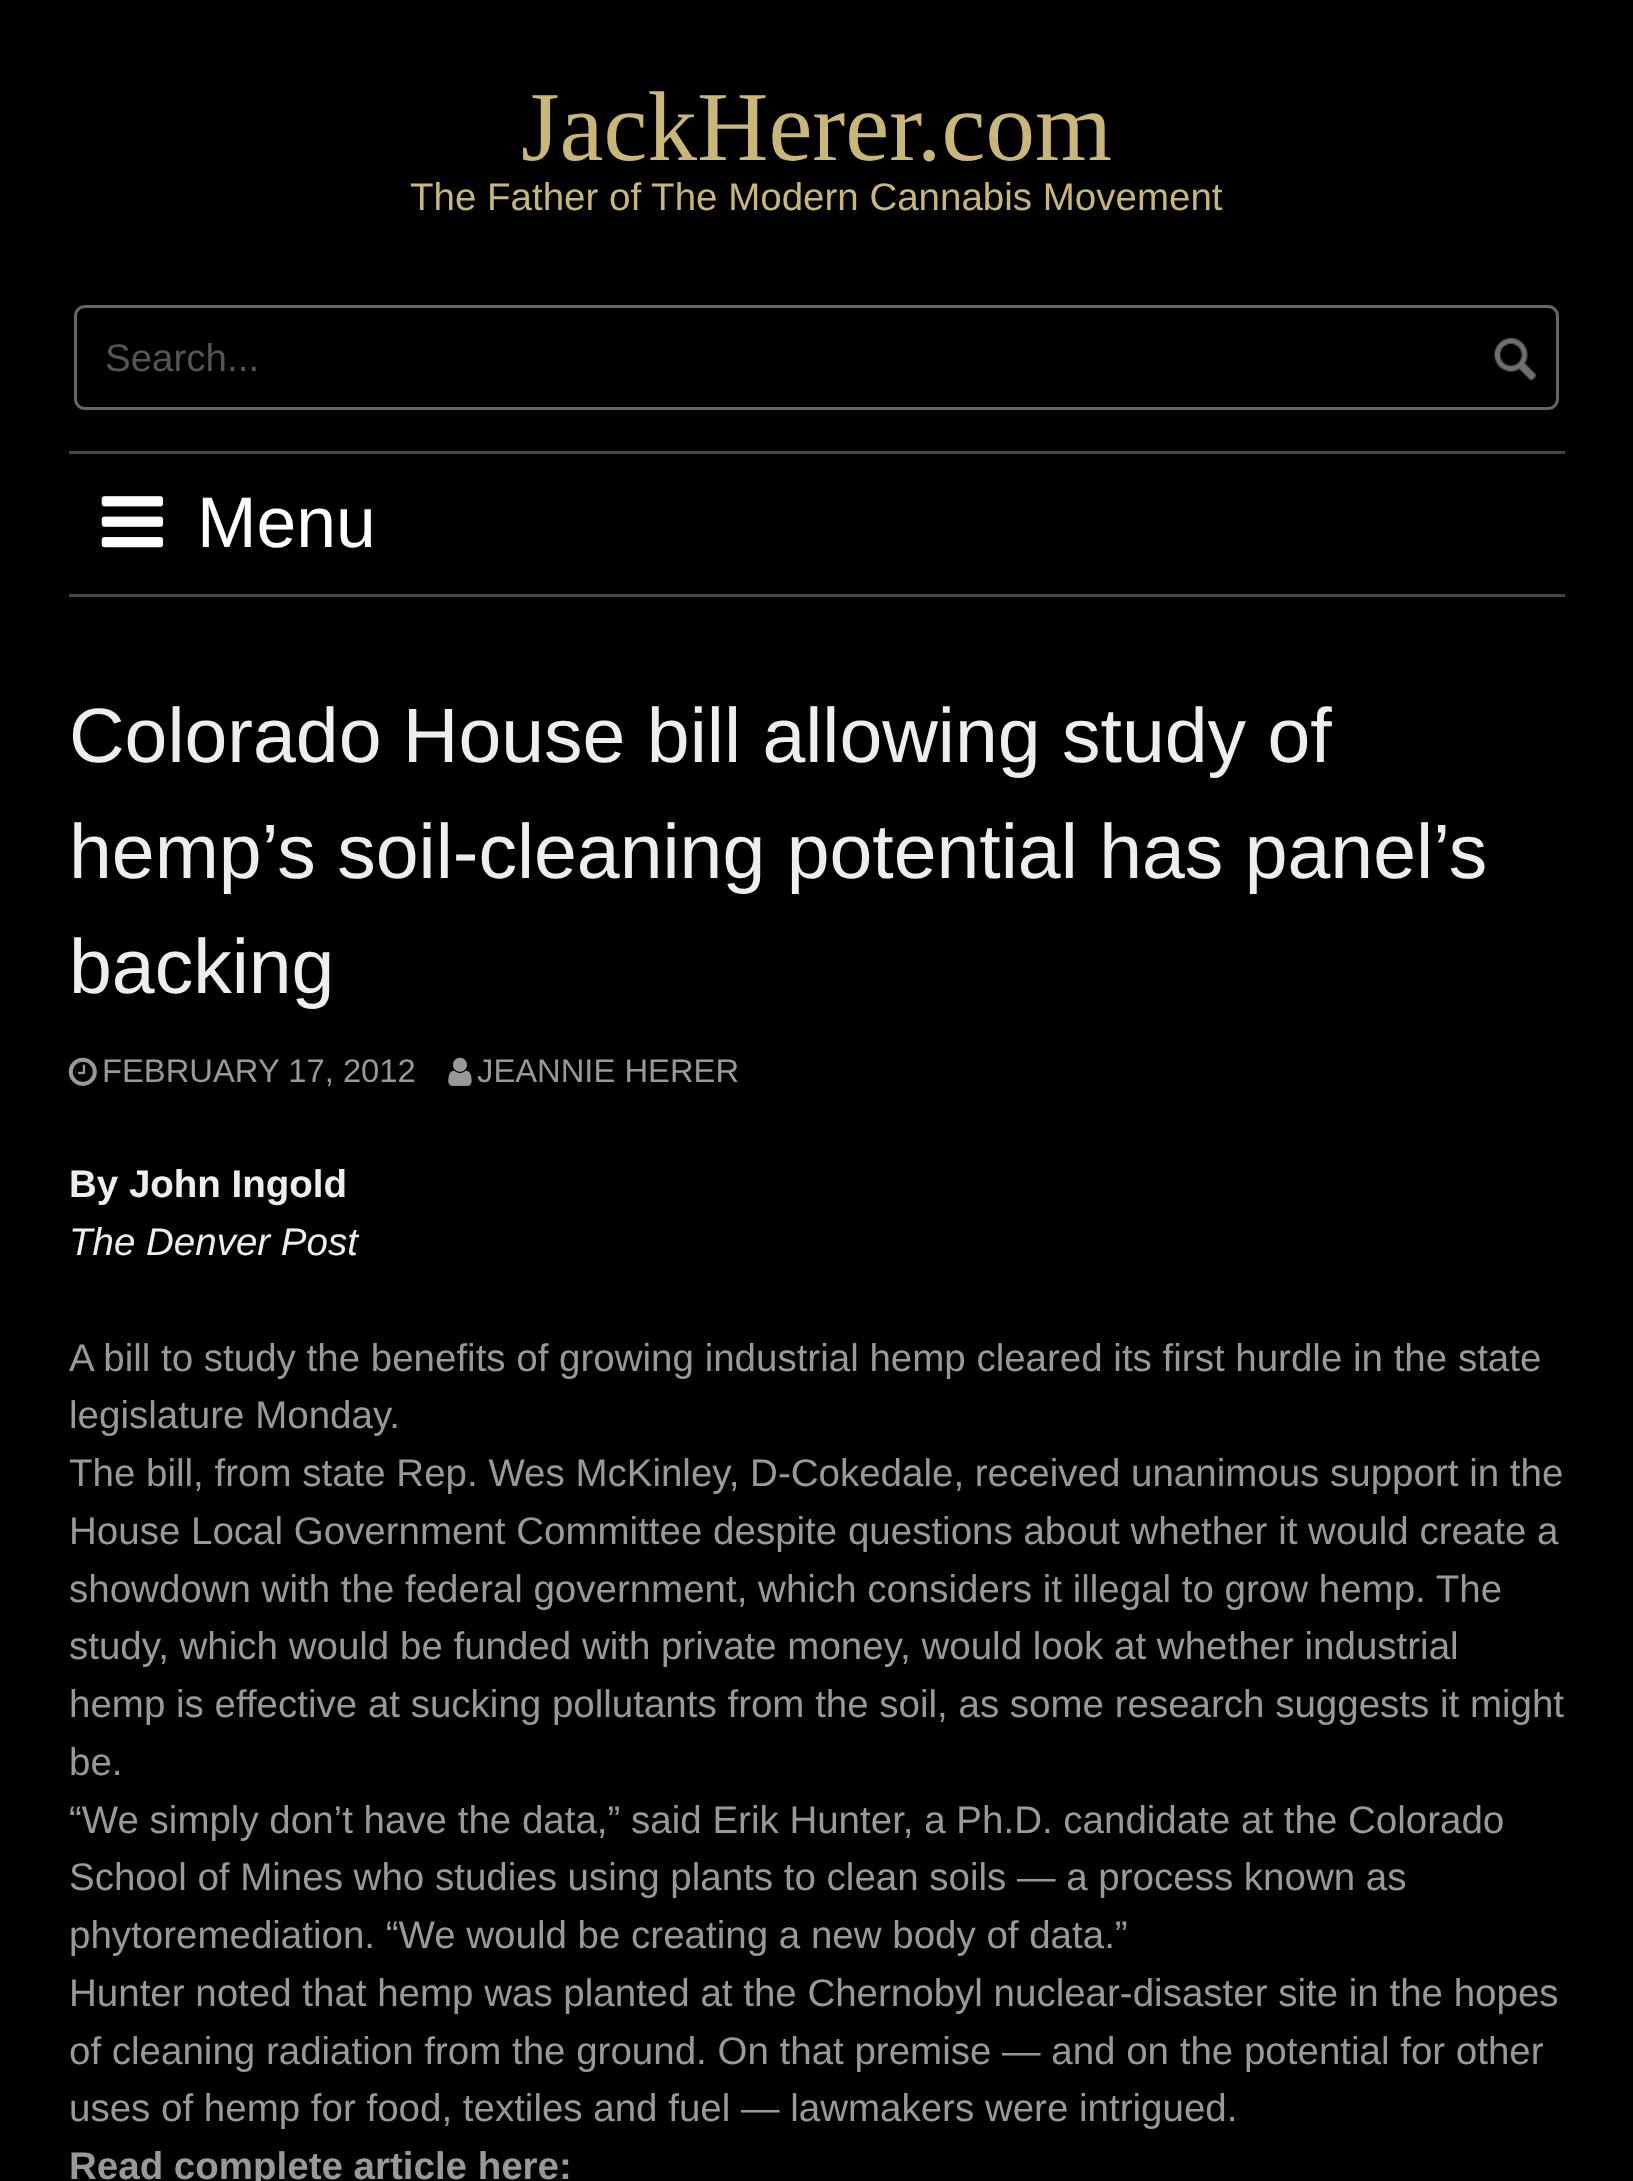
(async () => {
    const canvas = document.querySelector("canvas");
    canvas.width = 1633;
    canvas.height = 2181;
    const context = canvas.getContext("2d");
    context.miterLimit = 4;
    context.fontKerning = "normal";
    function write(s, x, y, font, color) {
        context.font = font;
        context.fillStyle = color;
        context.fillText(s, x, y);
    }
    function block(x, y, w, h, color) {
        context.fillStyle = color;
        context.fillRect(x, y, w, h);
    }
    async function photo(src, x, y, w, h) {
        const img = new Image();
        img.src = src;
        await img.decode();
        context.drawImage(img, x, y, w, h);
    }

    block(0, 0, 1633, 2181, "rgb(0, 0, 0)");
    write("JackHerer.com", 521, 160, "99px Liberation Serif", "rgb(201, 183, 120)");
    write("The Father of The Modern Cannabis Movement", 410, 210, "38.5px Liberation Sans", "rgb(201, 183, 120)");
    context.beginPath();
    context.roundRect(75.5, 306.5, 1482, 102, 9.5);
    context.strokeStyle = "rgb(102, 102, 102)";
    context.lineWidth = 3;
    context.stroke();
    write("Search...", 105, 371, "38.5px Liberation Sans", "rgb(85, 85, 85)");
    await photo("media/1.png", 1494, 338, 43, 43);
    block(69, 451, 1496, 3, "rgb(68, 68, 68)");
    block(69, 594, 1496, 3, "rgb(68, 68, 68)");
    await photo("media/2.png", 101, 496, 63, 52);
    write("Menu", 197, 547, "71.5px Liberation Sans", "rgb(255, 255, 255)");
    write("Colorado House bill allowing study of", 69, 762, "77px Liberation Sans", "rgb(238, 238, 238)");
    write("hemp’s soil-cleaning potential has panel’s", 69, 878, "77px Liberation Sans", "rgb(238, 238, 238)");
    write("backing", 69, 993, "77px Liberation Sans", "rgb(238, 238, 238)");
    await photo("media/3.png", 68, 1057, 29, 29);
    write("FEBRUARY 17, 2012", 102, 1082, "32.75px Liberation Sans", "rgb(153, 153, 153)");
    await photo("media/4.png", 448, 1057, 24, 29);
    write("JEANNIE HERER", 477, 1082, "32.75px Liberation Sans", "rgb(153, 153, 153)");
    write("By John Ingold", 69, 1197, "bold 38.5px Liberation Sans", "rgb(238, 238, 238)");
    write("The Denver Post", 69, 1255, "italic 38.5px Liberation Sans", "rgb(238, 238, 238)");
    write("A bill to study the benefits of growing industrial hemp cleared its first hurdle in the state", 69, 1371, "38.5px Liberation Sans", "rgb(153, 153, 153)");
    write("legislature Monday.", 69, 1428, "38.5px Liberation Sans", "rgb(153, 153, 153)");
    write("The bill, from state Rep. Wes McKinley, D-Cokedale, received unanimous support in the", 69, 1486, "38.5px Liberation Sans", "rgb(153, 153, 153)");
    write("House Local Government Committee despite questions about whether it would create a", 69, 1544, "38.5px Liberation Sans", "rgb(153, 153, 153)");
    write("showdown with the federal government, which considers it illegal to grow hemp. The", 69, 1602, "38.5px Liberation Sans", "rgb(153, 153, 153)");
    write("study, which would be funded with private money, would look at whether industrial", 69, 1659, "38.5px Liberation Sans", "rgb(153, 153, 153)");
    write("hemp is effective at sucking pollutants from the soil, as some research suggests it might", 69, 1717, "38.5px Liberation Sans", "rgb(153, 153, 153)");
    write("be.", 69, 1775, "38.5px Liberation Sans", "rgb(153, 153, 153)");
    write("“We simply don’t have the data,” said Erik Hunter, a Ph.D. candidate at the Colorado", 69, 1833, "38.5px Liberation Sans", "rgb(153, 153, 153)");
    write("School of Mines who studies using plants to clean soils — a process known as", 69, 1890, "38.5px Liberation Sans", "rgb(153, 153, 153)");
    write("phytoremediation. “We would be creating a new body of data.”", 69, 1948, "38.5px Liberation Sans", "rgb(153, 153, 153)");
    write("Hunter noted that hemp was planted at the Chernobyl nuclear-disaster site in the hopes", 69, 2006, "38.5px Liberation Sans", "rgb(153, 153, 153)");
    write("of cleaning radiation from the ground. On that premise — and on the potential for other", 69, 2064, "38.5px Liberation Sans", "rgb(153, 153, 153)");
    write("uses of hemp for food, textiles and fuel — lawmakers were intrigued.", 69, 2121, "38.5px Liberation Sans", "rgb(153, 153, 153)");
    write("Read complete article here:", 69, 2179, "bold 38.5px Liberation Sans", "rgb(153, 153, 153)");
})();
